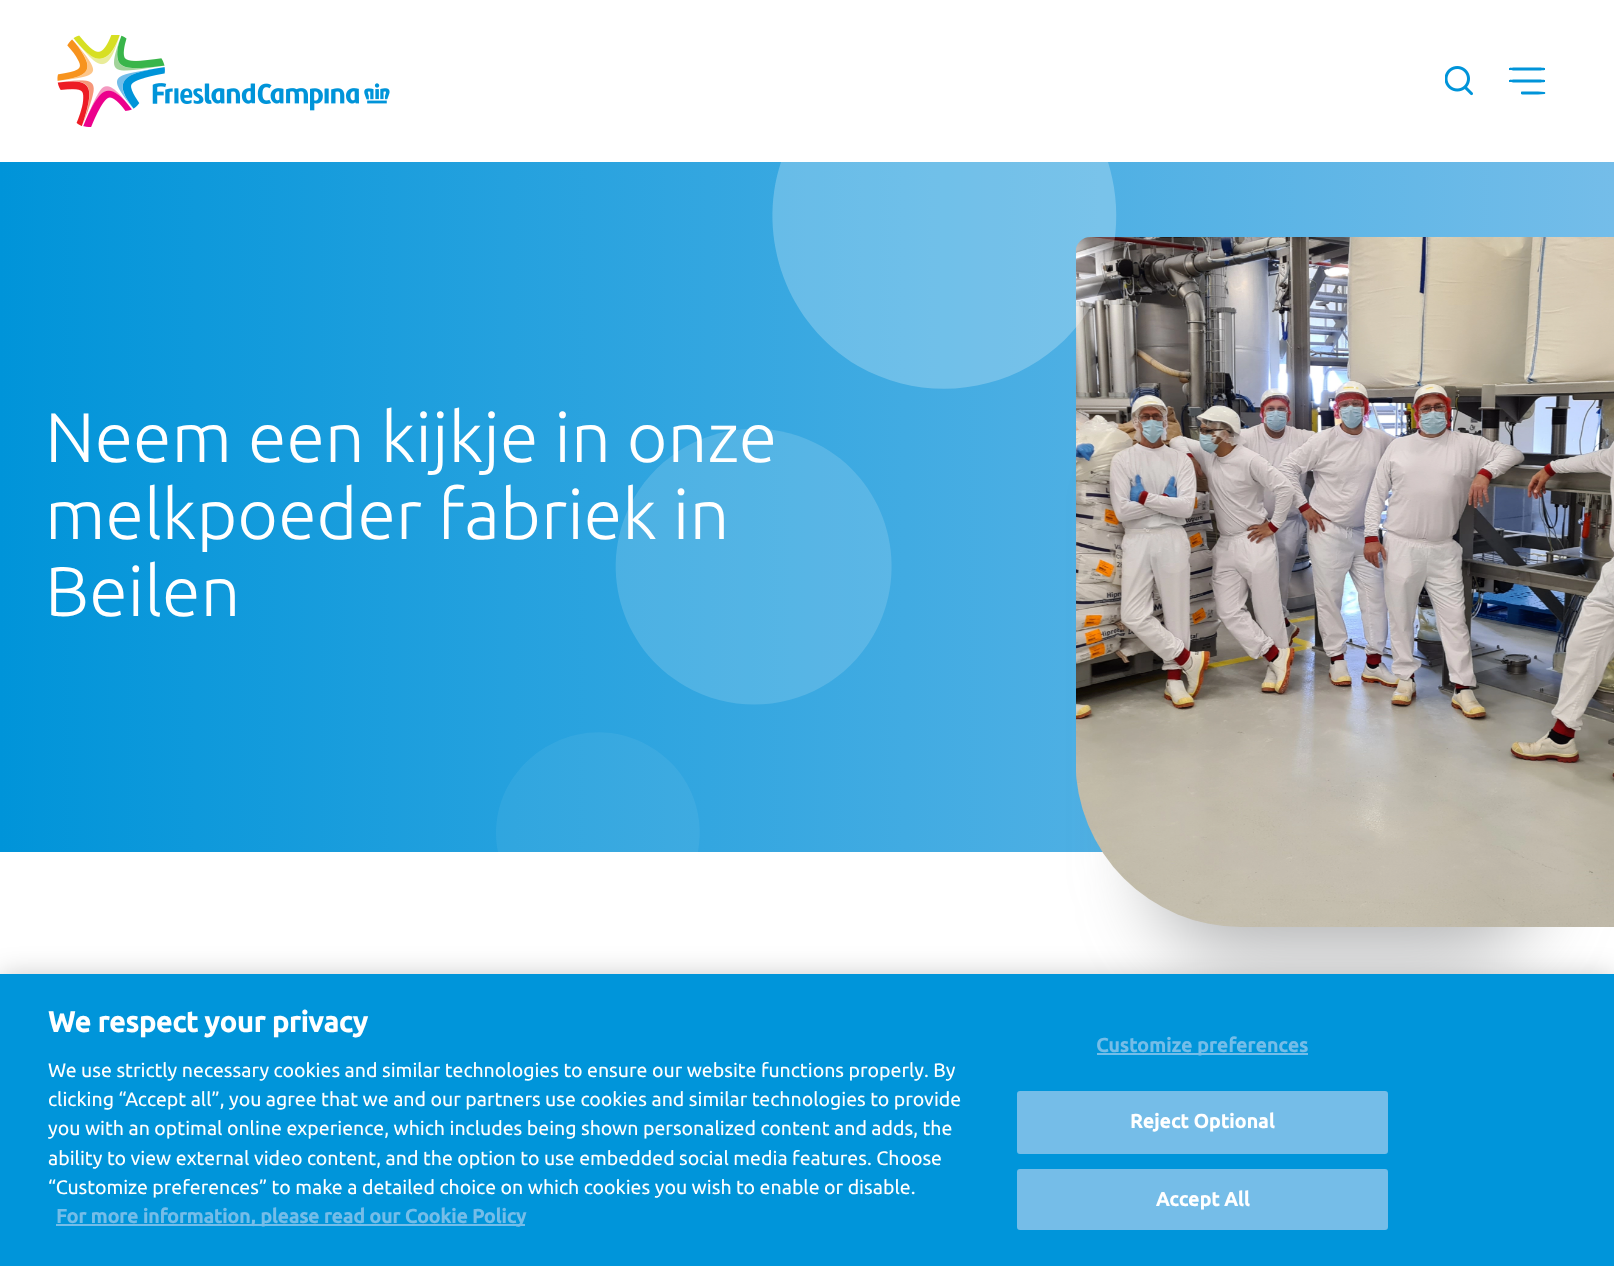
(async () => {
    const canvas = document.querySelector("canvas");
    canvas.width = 1614;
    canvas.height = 1266;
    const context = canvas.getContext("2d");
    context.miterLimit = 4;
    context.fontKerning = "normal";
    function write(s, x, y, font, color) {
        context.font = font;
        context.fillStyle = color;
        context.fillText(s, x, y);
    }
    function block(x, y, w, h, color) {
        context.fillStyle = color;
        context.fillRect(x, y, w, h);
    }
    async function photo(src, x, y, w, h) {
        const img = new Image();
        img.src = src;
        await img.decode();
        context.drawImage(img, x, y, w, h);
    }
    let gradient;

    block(0, 0, 1614, 1266, "rgb(255, 255, 255)");
    await photo("media/1.png", 57, 35, 333, 92);
    await photo("media/2.png", 1445, 66, 28, 30);
    context.fillStyle = "rgb(0, 148, 217)";
    context.beginPath();
    context.moveTo(1516, 79.5);
    context.lineTo(1538, 79.5);
    context.bezierCurveTo(1542, 79.5, 1545, 80, 1545, 80);
    context.lineTo(1545, 82);
    context.bezierCurveTo(1545, 82, 1542, 82.5, 1538, 82.5);
    context.lineTo(1516, 82.5);
    context.bezierCurveTo(1512, 82.5, 1509, 82, 1509, 82);
    context.lineTo(1509, 80);
    context.bezierCurveTo(1509, 80, 1512, 79.5, 1516, 79.5);
    context.closePath();
    context.moveTo(1516, 67.5);
    context.lineTo(1538, 67.5);
    context.bezierCurveTo(1542, 67.5, 1545, 68, 1545, 68);
    context.lineTo(1545, 70);
    context.bezierCurveTo(1545, 70, 1542, 70.5, 1538, 70.5);
    context.lineTo(1516, 70.5);
    context.bezierCurveTo(1512, 70.5, 1509, 70, 1509, 70);
    context.lineTo(1509, 68);
    context.bezierCurveTo(1509, 68, 1512, 67.5, 1516, 67.5);
    context.closePath();
    context.moveTo(1526, 91.5);
    context.lineTo(1538, 91.5);
    context.lineTo(1544.5, 92);
    context.bezierCurveTo(1545.5, 92, 1545.5, 94, 1544.5, 94);
    context.lineTo(1538, 94.5);
    context.lineTo(1526, 94.5);
    context.bezierCurveTo(1525, 94.5, 1521, 94.5, 1521, 94);
    context.lineTo(1521, 92);
    context.bezierCurveTo(1521, 91.5, 1525, 91.5, 1526, 91.5);
    context.closePath();
    context.fill();
    gradient = context.createLinearGradient(0, 507, 1614, 507);
    gradient.addColorStop(0, "rgb(0, 148, 217)");
    gradient.addColorStop(1, "rgb(116, 189, 233)");
    context.fillStyle = gradient;
    context.fillRect(0, 162, 1614, 690);
    write("Neem een kijkje in onze", 45, 462, "300 70.1px Ubuntu", "rgb(255, 255, 255)");
    write("melkpoeder fabriek in", 45, 539, "300 70.1px Ubuntu", "rgb(255, 255, 255)");
    write("Beilen", 45, 616, "300 70.1px Ubuntu", "rgb(255, 255, 255)");
    context.fillStyle = "rgba(110, 111, 114, 0.5)";
    context.filter = "blur(37.5px)";
    context.beginPath();
    context.roundRect(1151, 417, 388, 540, 90);
    context.fill();
    context.filter = "none";
    await photo("media/3.png", 1076, 237, 538, 690);
    context.fillStyle = "rgba(255, 255, 255, 0.24)";
    context.beginPath();
    context.moveTo(1108, 162);
    context.lineTo(781, 162);
    context.bezierCurveTo(756, 238, 787, 324, 858, 366);
    context.bezierCurveTo(941, 413, 1046, 385, 1093, 303);
    context.bezierCurveTo(1119, 258, 1122, 207, 1108, 162);
    context.fill("evenodd");
    context.fillStyle = "rgba(255, 255, 255, 0.06)";
    context.beginPath();
    context.moveTo(649, 746);
    context.bezierCurveTo(574, 703, 482, 768, 498, 852);
    context.lineTo(698, 852);
    context.bezierCurveTo(706, 811, 688, 768, 649, 746);
    context.fill("evenodd");
    context.fillStyle = "rgba(255, 255, 255, 0.15)";
    context.beginPath();
    context.moveTo(823, 447);
    context.bezierCurveTo(757, 409, 672, 432, 634, 498);
    context.bezierCurveTo(596, 564, 619, 648, 685, 686);
    context.bezierCurveTo(751, 724, 835, 702, 873, 636);
    context.bezierCurveTo(911, 570, 889, 485, 823, 447);
    context.fill("evenodd");
    context.fillStyle = "rgba(0, 0, 0, 0.2)";
    context.filter = "blur(13.5px)";
    context.beginPath();
    context.rect(0, 974, 1614, 292);
    context.fill();
    context.filter = "none";
    block(0, 974, 1614, 292, "rgb(0, 149, 218)");
    write("We respect your privacy", 48, 1032, "bold 28.75px Ubuntu", "rgb(255, 255, 255)");
    write("We use strictly necessary cookies and similar technologies to ensure our website functions properly. By", 48, 1077, "19.5px Ubuntu", "rgb(255, 255, 255)");
    write("clicking “Accept all”, you agree that we and our partners use cookies and similar technologies to provide", 48, 1106, "19.5px Ubuntu", "rgb(255, 255, 255)");
    write("you with an optimal online experience, which includes being shown personalized content and adds, the", 48, 1135, "19.5px Ubuntu", "rgb(255, 255, 255)");
    write("ability to view external video content, and the option to use embedded social media features. Choose", 48, 1165, "19.5px Ubuntu", "rgb(255, 255, 255)");
    write("“Customize preferences” to make a detailed choice on which cookies you wish to enable or disable.", 48, 1194, "19.5px Ubuntu", "rgb(255, 255, 255)");
    block(56, 1224, 469, 2, "rgb(117, 189, 232)");
    write("For more information, please read our Cookie Policy", 56, 1223, "bold 19.5px Ubuntu", "rgb(117, 189, 232)");
    block(1097, 1053, 211, 2, "rgb(117, 189, 232)");
    context.letterSpacing = "0.2px";
    write("Customize preferences", 1096, 1052, "bold 19.5px Ubuntu", "rgb(117, 189, 232)");
    context.beginPath();
    context.roundRect(1018, 1092, 369, 61, 2);
    context.fill();
    context.strokeStyle = "rgb(117, 189, 232)";
    context.lineWidth = 2;
    context.stroke();
    write("Reject Optional", 1130, 1128, "bold 19.5px Ubuntu", "rgb(255, 255, 255)");
    context.fillStyle = "rgb(117, 189, 232)";
    context.beginPath();
    context.roundRect(1018, 1170, 369, 59, 2);
    context.fill();
    context.stroke();
    write("Accept All", 1156, 1206, "bold 19.5px Ubuntu", "rgb(255, 255, 255)");
})();
